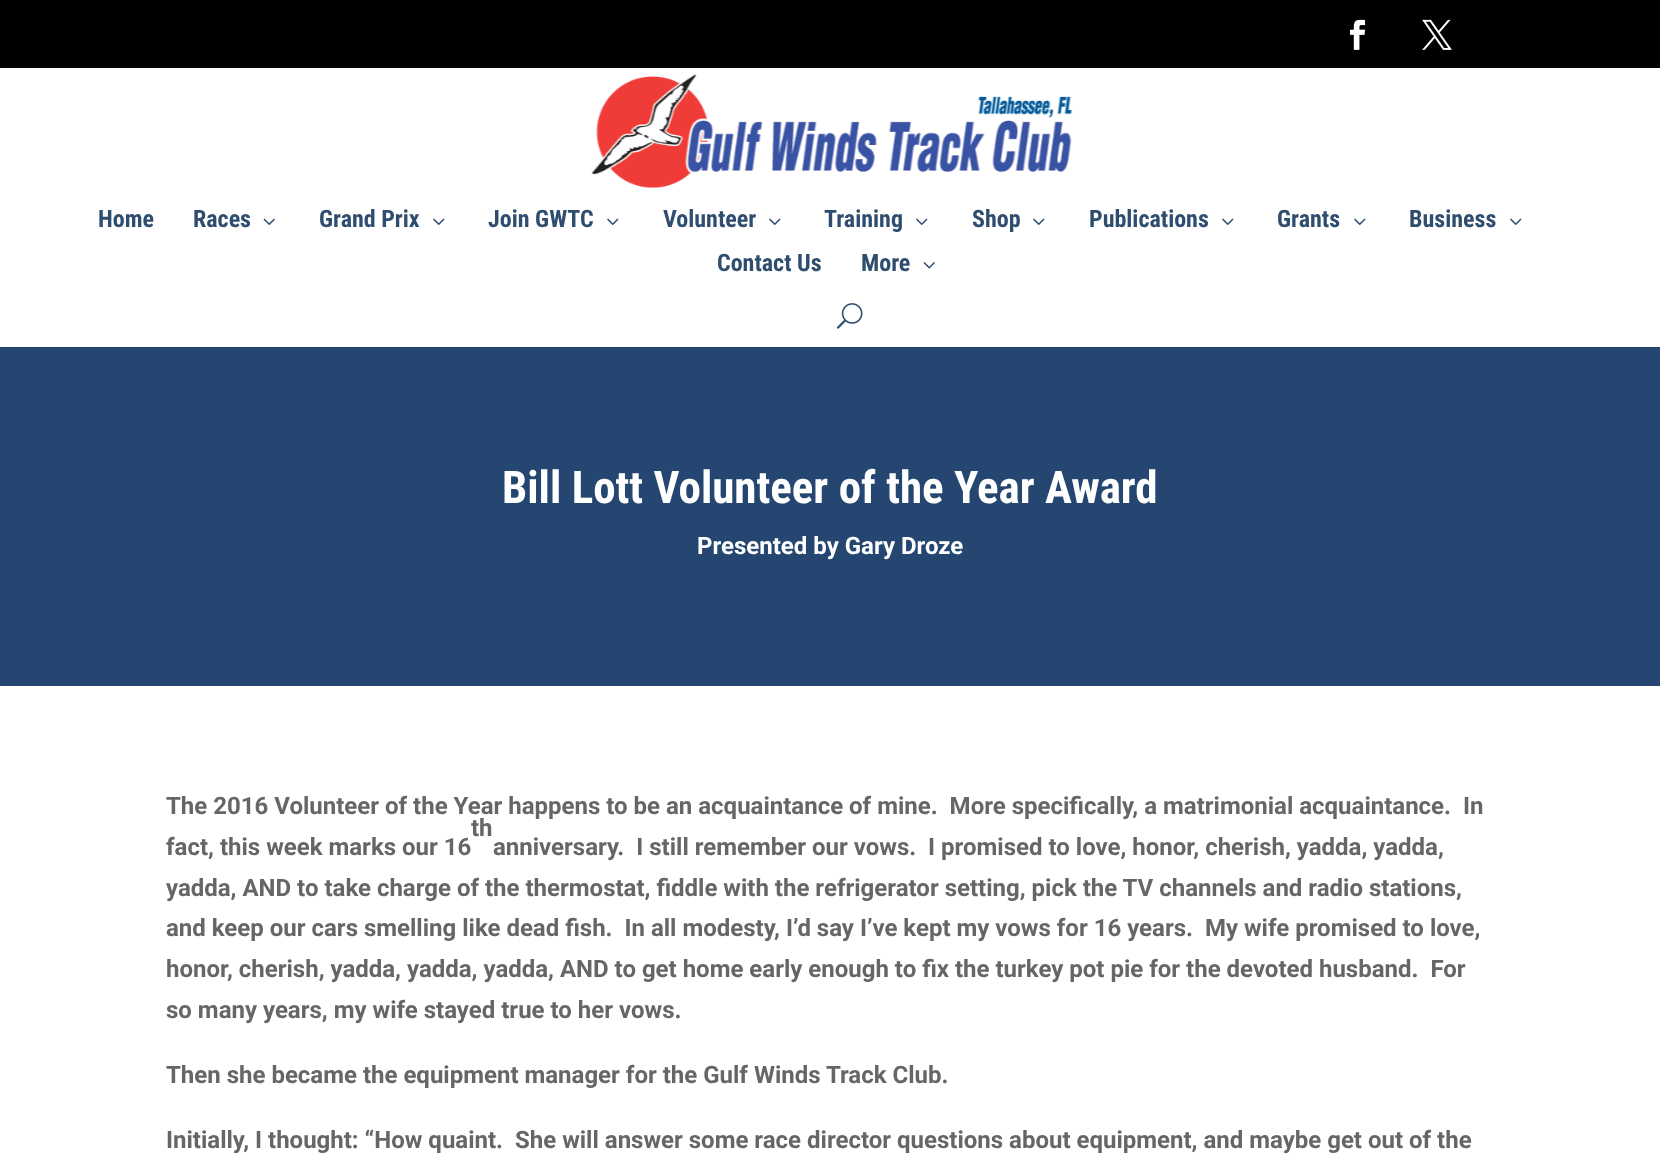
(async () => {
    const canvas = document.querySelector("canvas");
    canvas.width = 1660;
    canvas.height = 1165;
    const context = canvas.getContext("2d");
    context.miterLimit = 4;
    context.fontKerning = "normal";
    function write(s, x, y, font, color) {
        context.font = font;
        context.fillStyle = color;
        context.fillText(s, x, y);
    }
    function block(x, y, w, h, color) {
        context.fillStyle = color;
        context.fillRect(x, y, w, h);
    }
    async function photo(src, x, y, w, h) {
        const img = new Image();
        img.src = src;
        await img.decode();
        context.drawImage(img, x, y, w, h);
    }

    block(0, 0, 1660, 1165, "rgb(255, 255, 255)");
    block(0, 0, 1660, 68, "rgb(0, 0, 0)");
    await photo("media/1.png", 1350, 19, 16, 31);
    await photo("media/2.png", 1422, 19, 30, 31);
    context.fillStyle = "rgb(32, 63, 101)";
    context.beginPath();
    context.moveTo(0, 346);
    context.lineTo(0, 348);
    context.lineTo(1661, 348);
    context.lineTo(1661, 69);
    context.lineTo(1660, 69);
    context.lineTo(1660, 346);
    context.closePath();
    context.fill();
    block(0, 346, 1660, 1, "rgb(255, 255, 255)");
    await photo("media/3.png", 591, 74, 482, 114);
    write("Home", 98, 227, "bold 24px Roboto Condensed", "rgb(47, 78, 111)");
    write("Races", 193, 227, "bold 24px Roboto Condensed", "rgb(47, 78, 111)");
    await photo("media/4.png", 263, 218, 12, 7);
    write("Grand Prix", 319, 227, "bold 24px Roboto Condensed", "rgb(47, 78, 111)");
    await photo("media/5.png", 433, 218, 12, 7);
    write("Join GWTC", 488, 227, "bold 24px Roboto Condensed", "rgb(47, 78, 111)");
    await photo("media/5.png", 607, 218, 12, 7);
    write("Volunteer", 663, 227, "bold 24px Roboto Condensed", "rgb(47, 78, 111)");
    await photo("media/5.png", 769, 218, 12, 7);
    write("Training", 824, 227, "bold 24px Roboto Condensed", "rgb(47, 78, 111)");
    await photo("media/5.png", 916, 218, 12, 7);
    write("Shop", 972, 227, "bold 24px Roboto Condensed", "rgb(47, 78, 111)");
    await photo("media/5.png", 1033, 218, 12, 7);
    write("Publications", 1089, 227, "bold 24px Roboto Condensed", "rgb(47, 78, 111)");
    await photo("media/5.png", 1222, 218, 12, 7);
    write("Grants", 1277, 227, "bold 24px Roboto Condensed", "rgb(47, 78, 111)");
    await photo("media/5.png", 1354, 218, 12, 7);
    write("Business", 1409, 227, "bold 24px Roboto Condensed", "rgb(47, 78, 111)");
    await photo("media/5.png", 1510, 218, 12, 7);
    write("Contact Us", 717, 271, "bold 24px Roboto Condensed", "rgb(47, 78, 111)");
    write("More", 861, 271, "bold 24px Roboto Condensed", "rgb(47, 78, 111)");
    await photo("media/6.png", 923, 262, 12, 7);
    await photo("media/7.png", 836, 303, 27, 26);
    block(0, 348, 1660, 338, "rgb(36, 70, 112)");
    write("Bill Lott Volunteer of the Year Award", 502, 503, "bold 45px Roboto Condensed", "rgb(255, 255, 255)");
    write("Presented by Gary Droze", 697, 554, "bold 24px Roboto", "rgb(255, 255, 255)");
    write("The 2016 Volunteer of the Year happens to be an acquaintance of mine.  More specifically, a matrimonial acquaintance.  In", 166, 814, "bold 24px Roboto", "rgb(102, 102, 102)");
    write("th", 471, 836, "bold 24px Roboto", "rgb(102, 102, 102)");
    write("fact, this week marks our 16", 166, 855, "bold 24px Roboto", "rgb(102, 102, 102)");
    write("anniversary.  I still remember our vows.  I promised to love, honor, cherish, yadda, yadda,", 493, 855, "bold 24px Roboto", "rgb(102, 102, 102)");
    write("yadda, AND to take charge of the thermostat, fiddle with the refrigerator setting, pick the TV channels and radio stations,", 166, 896, "bold 24px Roboto", "rgb(102, 102, 102)");
    write("and keep our cars smelling like dead fish.  In all modesty, I’d say I’ve kept my vows for 16 years.  My wife promised to love,", 166, 936, "bold 24px Roboto", "rgb(102, 102, 102)");
    write("honor, cherish, yadda, yadda, yadda, AND to get home early enough to fix the turkey pot pie for the devoted husband.  For", 166, 977, "bold 24px Roboto", "rgb(102, 102, 102)");
    write("so many years, my wife stayed true to her vows.", 166, 1018, "bold 24px Roboto", "rgb(102, 102, 102)");
    write("Then she became the equipment manager for the Gulf Winds Track Club.", 166, 1083, "bold 24px Roboto", "rgb(102, 102, 102)");
    write("Initially, I thought: “How quaint.  She will answer some race director questions about equipment, and maybe get out of the", 166, 1148, "bold 24px Roboto", "rgb(102, 102, 102)");
})();
